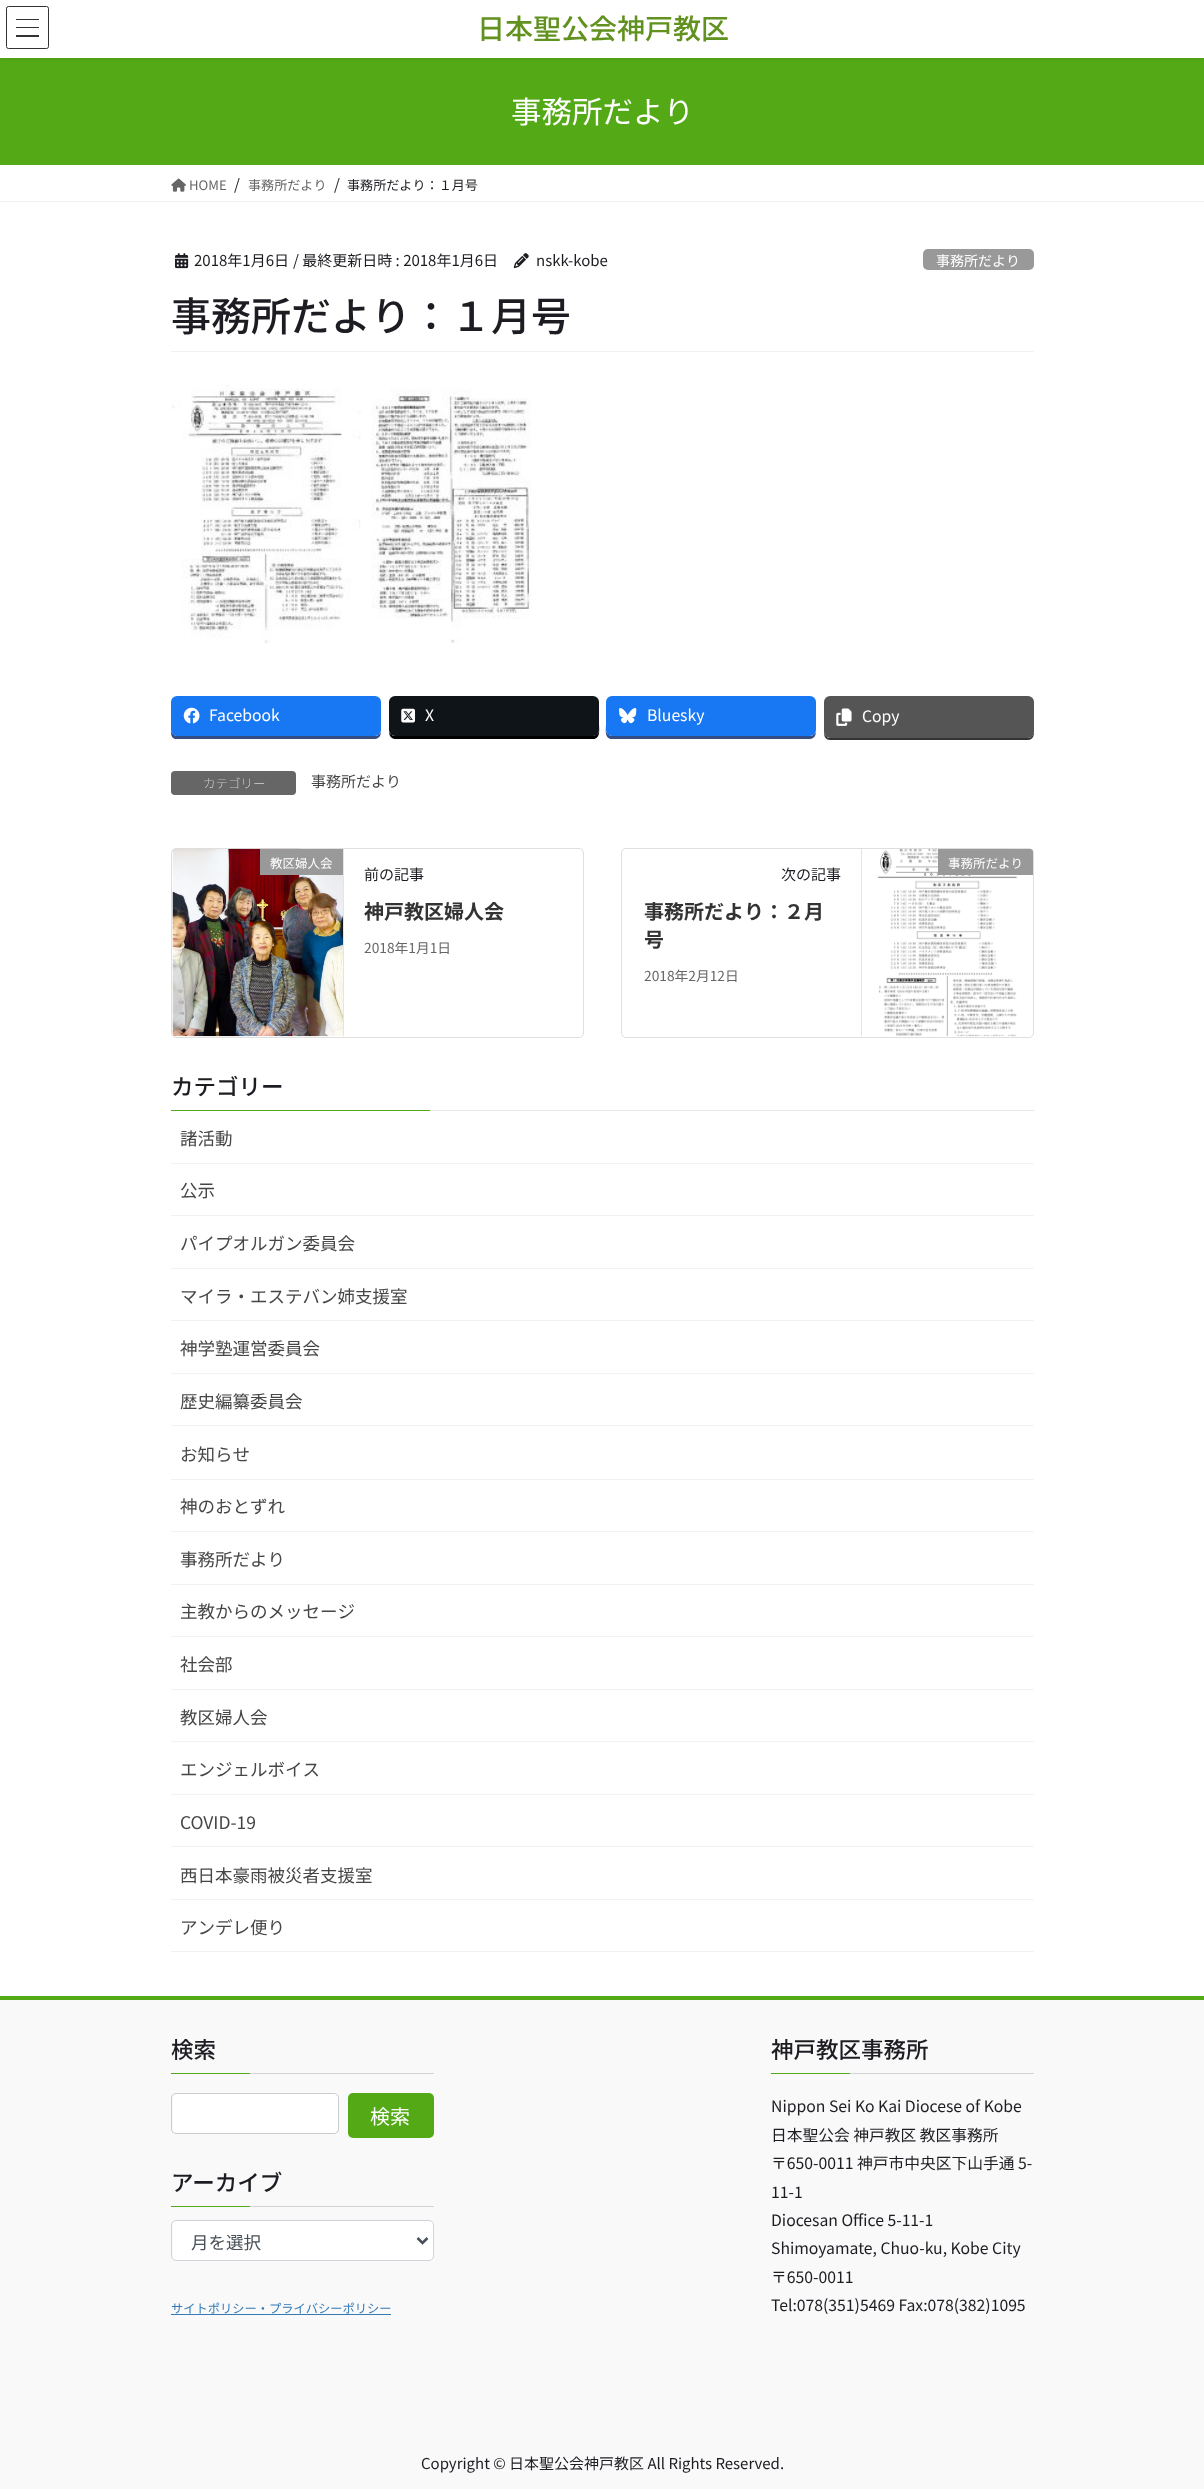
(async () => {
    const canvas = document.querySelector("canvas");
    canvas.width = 1204;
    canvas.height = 2489;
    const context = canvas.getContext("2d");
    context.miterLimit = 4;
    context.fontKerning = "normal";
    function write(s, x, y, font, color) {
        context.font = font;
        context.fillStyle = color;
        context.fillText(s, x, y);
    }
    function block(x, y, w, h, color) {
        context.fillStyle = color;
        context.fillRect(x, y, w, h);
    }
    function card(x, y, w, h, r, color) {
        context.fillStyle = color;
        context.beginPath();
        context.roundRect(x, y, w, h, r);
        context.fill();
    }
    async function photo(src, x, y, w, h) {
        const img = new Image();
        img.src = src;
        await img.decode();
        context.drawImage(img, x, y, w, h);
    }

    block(0, 0, 1204, 2489, "rgb(255, 255, 255)");
    block(0, 58, 1204, 107, "rgb(84, 170, 22)");
    context.fillStyle = "rgba(0, 0, 0, 0.1)";
    context.filter = "blur(2px)";
    context.beginPath();
    context.rect(0, 1, 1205, 58);
    context.fill();
    context.filter = "none";
    block(0, 0, 1204, 58, "rgb(255, 255, 255)");
    block(16, 19, 23, 1, "rgb(51, 51, 51)");
    block(16, 27, 23, 1, "rgb(51, 51, 51)");
    block(16, 35, 23, 2, "rgb(51, 51, 51)");
    context.beginPath();
    context.roundRect(6.5, 6.5, 42, 42, 2);
    context.strokeStyle = "rgb(51, 51, 51)";
    context.stroke();
    write("日本聖公会神戸教区", 477, 39, "500 28px Noto Sans JP", "rgb(97, 145, 30)");
    write("事務所だより", 511, 123, "30.5px Noto Sans JP", "rgb(255, 255, 255)");
    block(0, 201, 1204, 1, "rgb(242, 242, 242)");
    await photo("media/1.png", 171, 178, 15, 14);
    write("HOME", 189, 190, "13.1px Noto Sans JP", "rgb(102, 102, 102)");
    write("/", 234, 190, "15px Noto Sans JP", "rgb(28, 28, 34)");
    write("事務所だより", 248, 190, "13.1px Noto Sans JP", "rgb(102, 102, 102)");
    write("/", 334, 190, "15px Noto Sans JP", "rgb(28, 28, 34)");
    write("事務所だより：１月号", 347, 190, "13.1px Noto Sans JP", "rgb(28, 28, 34)");
    block(171, 351, 863, 1, "rgb(242, 242, 242)");
    await photo("media/2.png", 175, 253, 14, 16);
    write("2018年1月6日", 194, 266, "15px Noto Sans JP", "rgb(28, 28, 34)");
    write("/ 最終更新日時 : 2018年1月6日", 293, 266, "15px Noto Sans JP", "rgb(28, 28, 34)");
    await photo("media/3.png", 513, 253, 16, 16);
    write("nskk-kobe", 536, 266, "15px Noto Sans JP", "rgb(28, 28, 34)");
    card(923, 249, 111, 21, 5, "rgb(153, 153, 153)");
    write("事務所だより", 936, 266, "14px Noto Sans JP", "rgb(255, 255, 255)");
    write("事務所だより：１月号", 171, 331, "500 40px Noto Sans JP", "rgb(28, 28, 34)");
    await photo("media/4.png", 171, 384, 360, 260);
    context.save();
    context.beginPath();
    context.rect(171, 696, 863, 45);
    context.clip();
    context.fillStyle = "rgb(52, 78, 132)";
    context.beginPath();
    context.moveTo(171, 703);
    context.lineTo(171, 724);
    context.bezierCurveTo(171, 729, 169, 739, 177, 739);
    context.lineTo(375, 739);
    context.bezierCurveTo(379, 739, 381, 735, 381, 732);
    context.bezierCurveTo(380, 734, 378, 736, 375, 736);
    context.lineTo(178, 736);
    context.bezierCurveTo(174, 736, 171, 733, 171, 730);
    context.closePath();
    context.fill();
    context.restore();
    card(171, 696, 210, 40, 6, "rgb(24, 119, 242)");
    await photo("media/5.png", 183, 707, 17, 17);
    write("Facebook", 209, 721, "15.75px Noto Sans JP", "rgb(255, 255, 255)");
    context.fillStyle = "rgb(0, 0, 0)";
    context.beginPath();
    context.moveTo(389, 732);
    context.bezierCurveTo(389, 735, 391, 739, 395, 739);
    context.lineTo(593, 739);
    context.bezierCurveTo(601, 739, 599, 729, 599, 724);
    context.lineTo(599, 703);
    context.lineTo(599, 730);
    context.bezierCurveTo(599, 733, 596, 736, 592, 736);
    context.lineTo(395, 736);
    context.bezierCurveTo(392, 736, 390, 734, 389, 732);
    context.closePath();
    context.fill();
    card(389, 696, 210, 40, 6, "rgb(15, 20, 25)");
    await photo("media/6.png", 401, 708, 15, 15);
    write("X", 425, 721, "15.75px Noto Sans JP", "rgb(255, 255, 255)");
    context.fillStyle = "rgb(52, 78, 132)";
    context.beginPath();
    context.moveTo(606, 703);
    context.lineTo(606, 724);
    context.bezierCurveTo(606, 729, 604, 739, 612, 739);
    context.lineTo(810, 739);
    context.bezierCurveTo(814, 739, 816, 735, 816, 732);
    context.bezierCurveTo(815, 734, 813, 736, 810, 736);
    context.lineTo(612, 736);
    context.bezierCurveTo(609, 736, 606, 733, 606, 730);
    context.closePath();
    context.fill();
    card(606, 696, 210, 40, 6, "rgb(24, 119, 242)");
    await photo("media/7.png", 619, 708, 18, 16);
    write("Bluesky", 647, 721, "15.75px Noto Sans JP", "rgb(255, 255, 255)");
    context.save();
    context.beginPath();
    context.rect(171, 696, 863, 45);
    context.clip();
    context.fillStyle = "rgb(51, 51, 51)";
    context.beginPath();
    context.moveTo(824, 733);
    context.bezierCurveTo(824, 737, 826, 740, 830, 740);
    context.lineTo(1028, 740);
    context.bezierCurveTo(1036, 740, 1034, 729, 1034, 724);
    context.lineTo(1034, 703);
    context.lineTo(1034, 731);
    context.bezierCurveTo(1034, 735, 1031, 738, 1028, 738);
    context.lineTo(830, 738);
    context.bezierCurveTo(827, 738, 825, 736, 824, 733);
    context.closePath();
    context.fill();
    context.restore();
    card(824, 696, 210, 42, 6, "rgb(85, 85, 85)");
    await photo("media/8.png", 836, 708, 16, 18);
    write("Copy", 862, 722, "15.75px Noto Sans JP", "rgb(255, 255, 255)");
    card(171, 771, 125, 24, 4, "rgb(102, 102, 102)");
    write("カテゴリー", 203, 788, "100 12.5px Noto Sans JP", "rgb(255, 255, 255)");
    write("事務所だより", 311, 787, "15px Noto Sans JP", "rgb(70, 70, 70)");
    context.beginPath();
    context.roundRect(171.5, 848.5, 412, 189, 4.5);
    context.strokeStyle = "rgb(223, 223, 223)";
    context.stroke();
    await photo("media/9.png", 172, 848, 172, 189);
    block(343, 849, 1, 187, "rgb(229, 229, 229)");
    block(260, 849, 83, 26, "rgb(153, 153, 153)");
    write("教区婦人会", 270, 868, "12.5px Noto Sans JP", "rgb(255, 255, 255)");
    write("前の記事", 364, 880, "15px Noto Sans JP", "rgb(28, 28, 34)");
    write("神戸教区婦人会", 364, 919, "bold 20px Noto Sans JP", "rgb(51, 51, 51)");
    write("2018年1月1日", 364, 953, "13.75px Noto Sans JP", "rgb(102, 102, 102)");
    context.beginPath();
    context.roundRect(621.5, 848.5, 412, 189, 4.5);
    context.stroke();
    await photo("media/10.png", 877, 848, 155, 189);
    block(861, 849, 1, 187, "rgb(229, 229, 229)");
    context.fillStyle = "rgb(153, 153, 153)";
    context.beginPath();
    context.roundRect(938, 849, 95, 26, [0, 3, 0, 0]);
    context.fill();
    write("事務所だより", 948, 868, "12.5px Noto Sans JP", "rgb(255, 255, 255)");
    write("次の記事", 781, 880, "15px Noto Sans JP", "rgb(28, 28, 34)");
    write("事務所だより：２月", 644, 919, "bold 20px Noto Sans JP", "rgb(51, 51, 51)");
    write("号", 644, 947, "bold 20px Noto Sans JP", "rgb(51, 51, 51)");
    write("2018年2月12日", 644, 981, "13.75px Noto Sans JP", "rgb(102, 102, 102)");
    block(430, 1110, 604, 1, "rgb(230, 230, 230)");
    write("カテゴリー", 171, 1095, "500 22.5px Noto Sans JP", "rgb(28, 28, 34)");
    block(171, 1110, 259, 1, "rgb(84, 170, 22)");
    block(171, 1163, 863, 1, "rgb(242, 242, 242)");
    write("諸活動", 180, 1145, "17.5px Noto Sans JP", "rgb(70, 70, 70)");
    block(171, 1215, 863, 1, "rgb(242, 242, 242)");
    write("公示", 180, 1197, "17.5px Noto Sans JP", "rgb(70, 70, 70)");
    block(171, 1268, 863, 1, "rgb(242, 242, 242)");
    write("パイプオルガン委員会", 180, 1250, "17.5px Noto Sans JP", "rgb(70, 70, 70)");
    block(171, 1320, 863, 1, "rgb(242, 242, 242)");
    write("マイラ・エステバン姉支援室", 180, 1303, "17.5px Noto Sans JP", "rgb(70, 70, 70)");
    block(171, 1373, 863, 1, "rgb(242, 242, 242)");
    write("神学塾運営委員会", 180, 1355, "17.5px Noto Sans JP", "rgb(70, 70, 70)");
    block(171, 1425, 863, 1, "rgb(242, 242, 242)");
    write("歴史編纂委員会", 180, 1408, "17.5px Noto Sans JP", "rgb(70, 70, 70)");
    block(171, 1479, 863, 1, "rgb(242, 242, 242)");
    write("お知らせ", 180, 1461, "17.5px Noto Sans JP", "rgb(70, 70, 70)");
    block(171, 1531, 863, 1, "rgb(242, 242, 242)");
    write("神のおとずれ", 180, 1513, "17.5px Noto Sans JP", "rgb(70, 70, 70)");
    block(171, 1584, 863, 1, "rgb(242, 242, 242)");
    write("事務所だより", 180, 1566, "17.5px Noto Sans JP", "rgb(70, 70, 70)");
    block(171, 1636, 863, 1, "rgb(242, 242, 242)");
    write("主教からのメッセージ", 180, 1618, "17.5px Noto Sans JP", "rgb(70, 70, 70)");
    block(171, 1689, 863, 1, "rgb(242, 242, 242)");
    write("社会部", 180, 1671, "17.5px Noto Sans JP", "rgb(70, 70, 70)");
    block(171, 1741, 863, 1, "rgb(242, 242, 242)");
    write("教区婦人会", 180, 1724, "17.5px Noto Sans JP", "rgb(70, 70, 70)");
    block(171, 1794, 863, 1, "rgb(242, 242, 242)");
    write("エンジェルボイス", 180, 1776, "17.5px Noto Sans JP", "rgb(70, 70, 70)");
    block(171, 1846, 863, 1, "rgb(242, 242, 242)");
    write("COVID-19", 180, 1829, "17.5px Noto Sans JP", "rgb(70, 70, 70)");
    block(171, 1899, 863, 1, "rgb(242, 242, 242)");
    write("西日本豪雨被災者支援室", 180, 1882, "17.5px Noto Sans JP", "rgb(70, 70, 70)");
    block(171, 1951, 863, 1, "rgb(242, 242, 242)");
    write("アンデレ便り", 180, 1934, "17.5px Noto Sans JP", "rgb(70, 70, 70)");
    block(0, 2000, 1204, 489, "rgb(249, 249, 249)");
    block(0, 1996, 1204, 4, "rgb(84, 170, 22)");
    block(250, 2073, 184, 1, "rgb(212, 212, 212)");
    write("検索", 171, 2058, "500 22.5px Noto Sans JP", "rgb(28, 28, 34)");
    block(171, 2073, 79, 1, "rgb(84, 170, 22)");
    card(173, 2094, 165, 39, 4, "rgb(255, 255, 255)");
    context.beginPath();
    context.roundRect(171.5, 2093.5, 167, 40, 4.5);
    context.strokeStyle = "rgb(204, 204, 204)";
    context.stroke();
    card(348, 2093, 86, 45, 5, "rgb(84, 170, 22)");
    write("検索", 370, 2124, "20px Noto Sans JP", "rgb(255, 255, 255)");
    block(250, 2206, 184, 1, "rgb(212, 212, 212)");
    write("アーカイブ", 171, 2191, "500 22.5px Noto Sans JP", "rgb(28, 28, 34)");
    block(171, 2206, 79, 1, "rgb(84, 170, 22)");
    card(173, 2221, 260, 39, 3, "rgb(255, 255, 255)");
    context.beginPath();
    context.roundRect(171.5, 2220.5, 262, 40, 4.5);
    context.strokeStyle = "rgb(206, 212, 218)";
    context.stroke();
    context.beginPath();
    context.moveTo(417.5, 2238);
    context.lineTo(422.5, 2243);
    context.lineTo(427.5, 2238);
    context.strokeStyle = "rgb(73, 80, 87)";
    context.lineWidth = 2.5;
    context.stroke();
    write("月を選択", 191, 2249, "17.5px Noto Sans JP", "rgb(73, 80, 87)");
    write("サイトポリシー・プライバシーポリシー", 171, 2313, "12.25px Noto Sans JP", "rgb(51, 122, 183)");
    block(171, 2314, 220, 1, "rgb(51, 122, 183)");
    block(850, 2073, 184, 1, "rgb(212, 212, 212)");
    write("神戸教区事務所", 771, 2058, "500 22.5px Noto Sans JP", "rgb(28, 28, 34)");
    block(771, 2073, 79, 1, "rgb(84, 170, 22)");
    write("Nippon Sei Ko Kai Diocese of Kobe", 771, 2112, "15.75px Noto Sans JP", "rgb(28, 28, 34)");
    write("日本聖公会 神戸教区 教区事務所", 771, 2141, "15.75px Noto Sans JP", "rgb(28, 28, 34)");
    write("〒650-0011 神戸市中央区下山手通 5-", 771, 2169, "15.75px Noto Sans JP", "rgb(28, 28, 34)");
    write("11-1", 771, 2198, "15.75px Noto Sans JP", "rgb(28, 28, 34)");
    write("Diocesan Office 5-11-1", 771, 2226, "15.75px Noto Sans JP", "rgb(28, 28, 34)");
    write("Shimoyamate, Chuo-ku, Kobe City", 771, 2254, "15.75px Noto Sans JP", "rgb(28, 28, 34)");
    write("〒650-0011", 771, 2283, "15.75px Noto Sans JP", "rgb(28, 28, 34)");
    write("Tel:078(351)5469 Fax:078(382)1095", 771, 2311, "15.75px Noto Sans JP", "rgb(28, 28, 34)");
    write("Copyright © 日本聖公会神戸教区 All Rights Reserved.", 421, 2469, "15px Noto Sans JP", "rgb(28, 28, 34)");
})();
